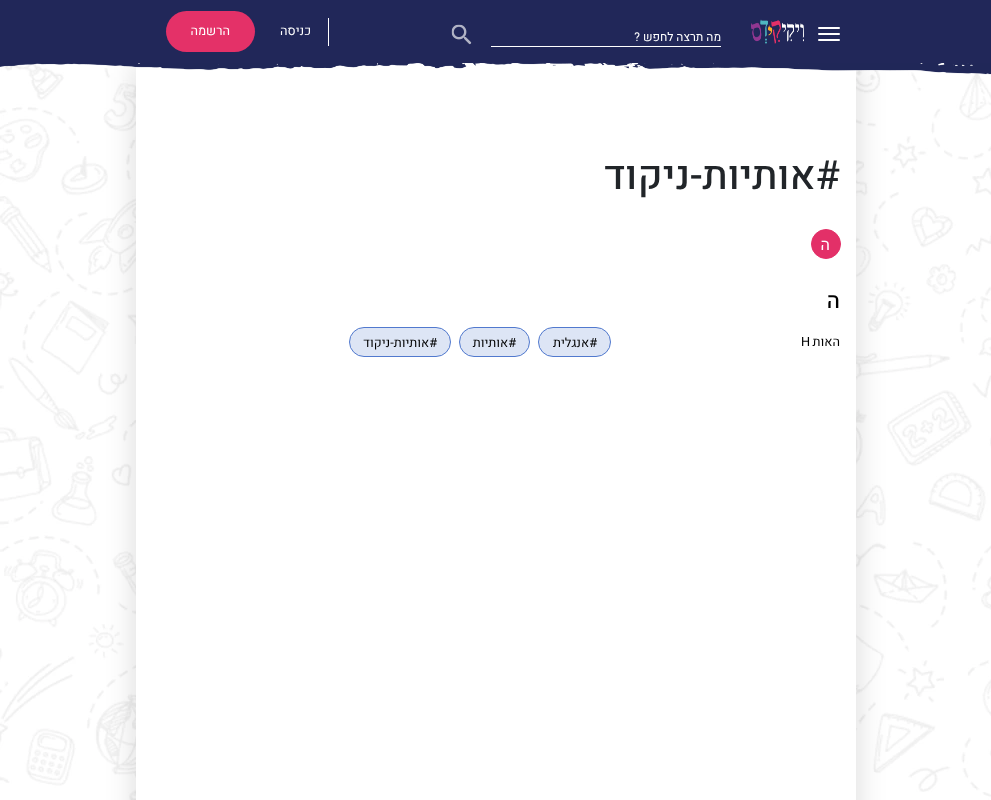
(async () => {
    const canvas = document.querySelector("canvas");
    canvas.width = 991;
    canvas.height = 800;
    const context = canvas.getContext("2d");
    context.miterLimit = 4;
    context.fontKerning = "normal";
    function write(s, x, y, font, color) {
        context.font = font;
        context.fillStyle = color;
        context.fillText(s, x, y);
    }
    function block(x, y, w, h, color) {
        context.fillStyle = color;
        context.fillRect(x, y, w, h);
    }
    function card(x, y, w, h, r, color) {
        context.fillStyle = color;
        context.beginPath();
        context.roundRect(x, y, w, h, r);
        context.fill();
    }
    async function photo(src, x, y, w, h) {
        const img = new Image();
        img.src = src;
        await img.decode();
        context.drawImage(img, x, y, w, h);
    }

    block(0, 0, 991, 800, "rgb(255, 255, 255)");
    await photo("media/1.png", 0, 63, 991, 737);
    context.fillStyle = "rgba(0, 0, 0, 0.15)";
    context.filter = "blur(15px)";
    context.beginPath();
    context.rect(136, 63, 720, 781);
    context.fill();
    context.filter = "none";
    block(0, 0, 991, 63, "rgb(33, 39, 89)");
    card(818, 27, 22, 2, 1, "rgb(255, 255, 255)");
    card(818, 33, 22, 2, 1, "rgb(255, 255, 255)");
    card(818, 39, 22, 2, 1, "rgb(255, 255, 255)");
    await photo("media/2.png", 751, 19, 53, 25);
    block(491, 46, 230, 1, "rgb(255, 255, 255)");
    context.direction = "rtl";
    write("מה תרצה לחפש ?", 721, 41, "12px Heebo", "rgb(255, 255, 255)");
    await photo("media/3.png", 451, 24, 21, 21);
    block(328, 18, 1, 28, "rgb(255, 255, 255)");
    write("כניסה", 311, 35, "12.75px Heebo", "rgb(255, 255, 255)");
    card(166, 11, 89, 41, 20.5, "rgb(228, 49, 104)");
    write("הרשמה", 230, 35, "12.75px Heebo", "rgb(255, 255, 255)");
    block(136, 63, 720, 737, "rgb(255, 255, 255)");
    await photo("media/4.png", 0, 63, 991, 12);
    write("#אותיות-ניקוד", 840, 189, "500 40px Heebo", "rgb(33, 37, 41)");
    context.fillStyle = "rgb(227, 48, 104)";
    context.beginPath();
    context.arc(826, 244, 14.5, 0, Math.PI * 2);
    context.fill();
    context.strokeStyle = "rgb(227, 48, 104)";
    context.stroke();
    write("ה", 830, 250, "16px Heebo", "rgb(255, 255, 255)");
    write("ה", 840, 308, "500 22px Heebo", "rgb(0, 0, 0)");
    write("האות", 840, 346, "12.75px Heebo", "rgb(0, 0, 0)");
    context.direction = "ltr";
    write("H", 801, 346, "12.75px Heebo", "rgb(0, 0, 0)");
    context.fillStyle = "rgb(221, 229, 245)";
    context.beginPath();
    context.roundRect(538.5, 327.5, 72, 29, 14.5);
    context.fill();
    context.strokeStyle = "rgb(81, 121, 206)";
    context.stroke();
    context.direction = "rtl";
    write("#אנגלית", 597, 347, "12.75px Heebo", "rgb(0, 0, 0)");
    context.fillStyle = "rgb(221, 229, 245)";
    context.beginPath();
    context.roundRect(459.5, 327.5, 70, 29, 14.5);
    context.fill();
    context.stroke();
    write("#אותיות", 516, 347, "12.75px Heebo", "rgb(0, 0, 0)");
    context.fillStyle = "rgb(221, 229, 245)";
    context.beginPath();
    context.roundRect(349.5, 327.5, 101, 29, 14.5);
    context.fill();
    context.stroke();
    write("#אותיות-ניקוד", 437, 347, "12.75px Heebo", "rgb(0, 0, 0)");
})();
